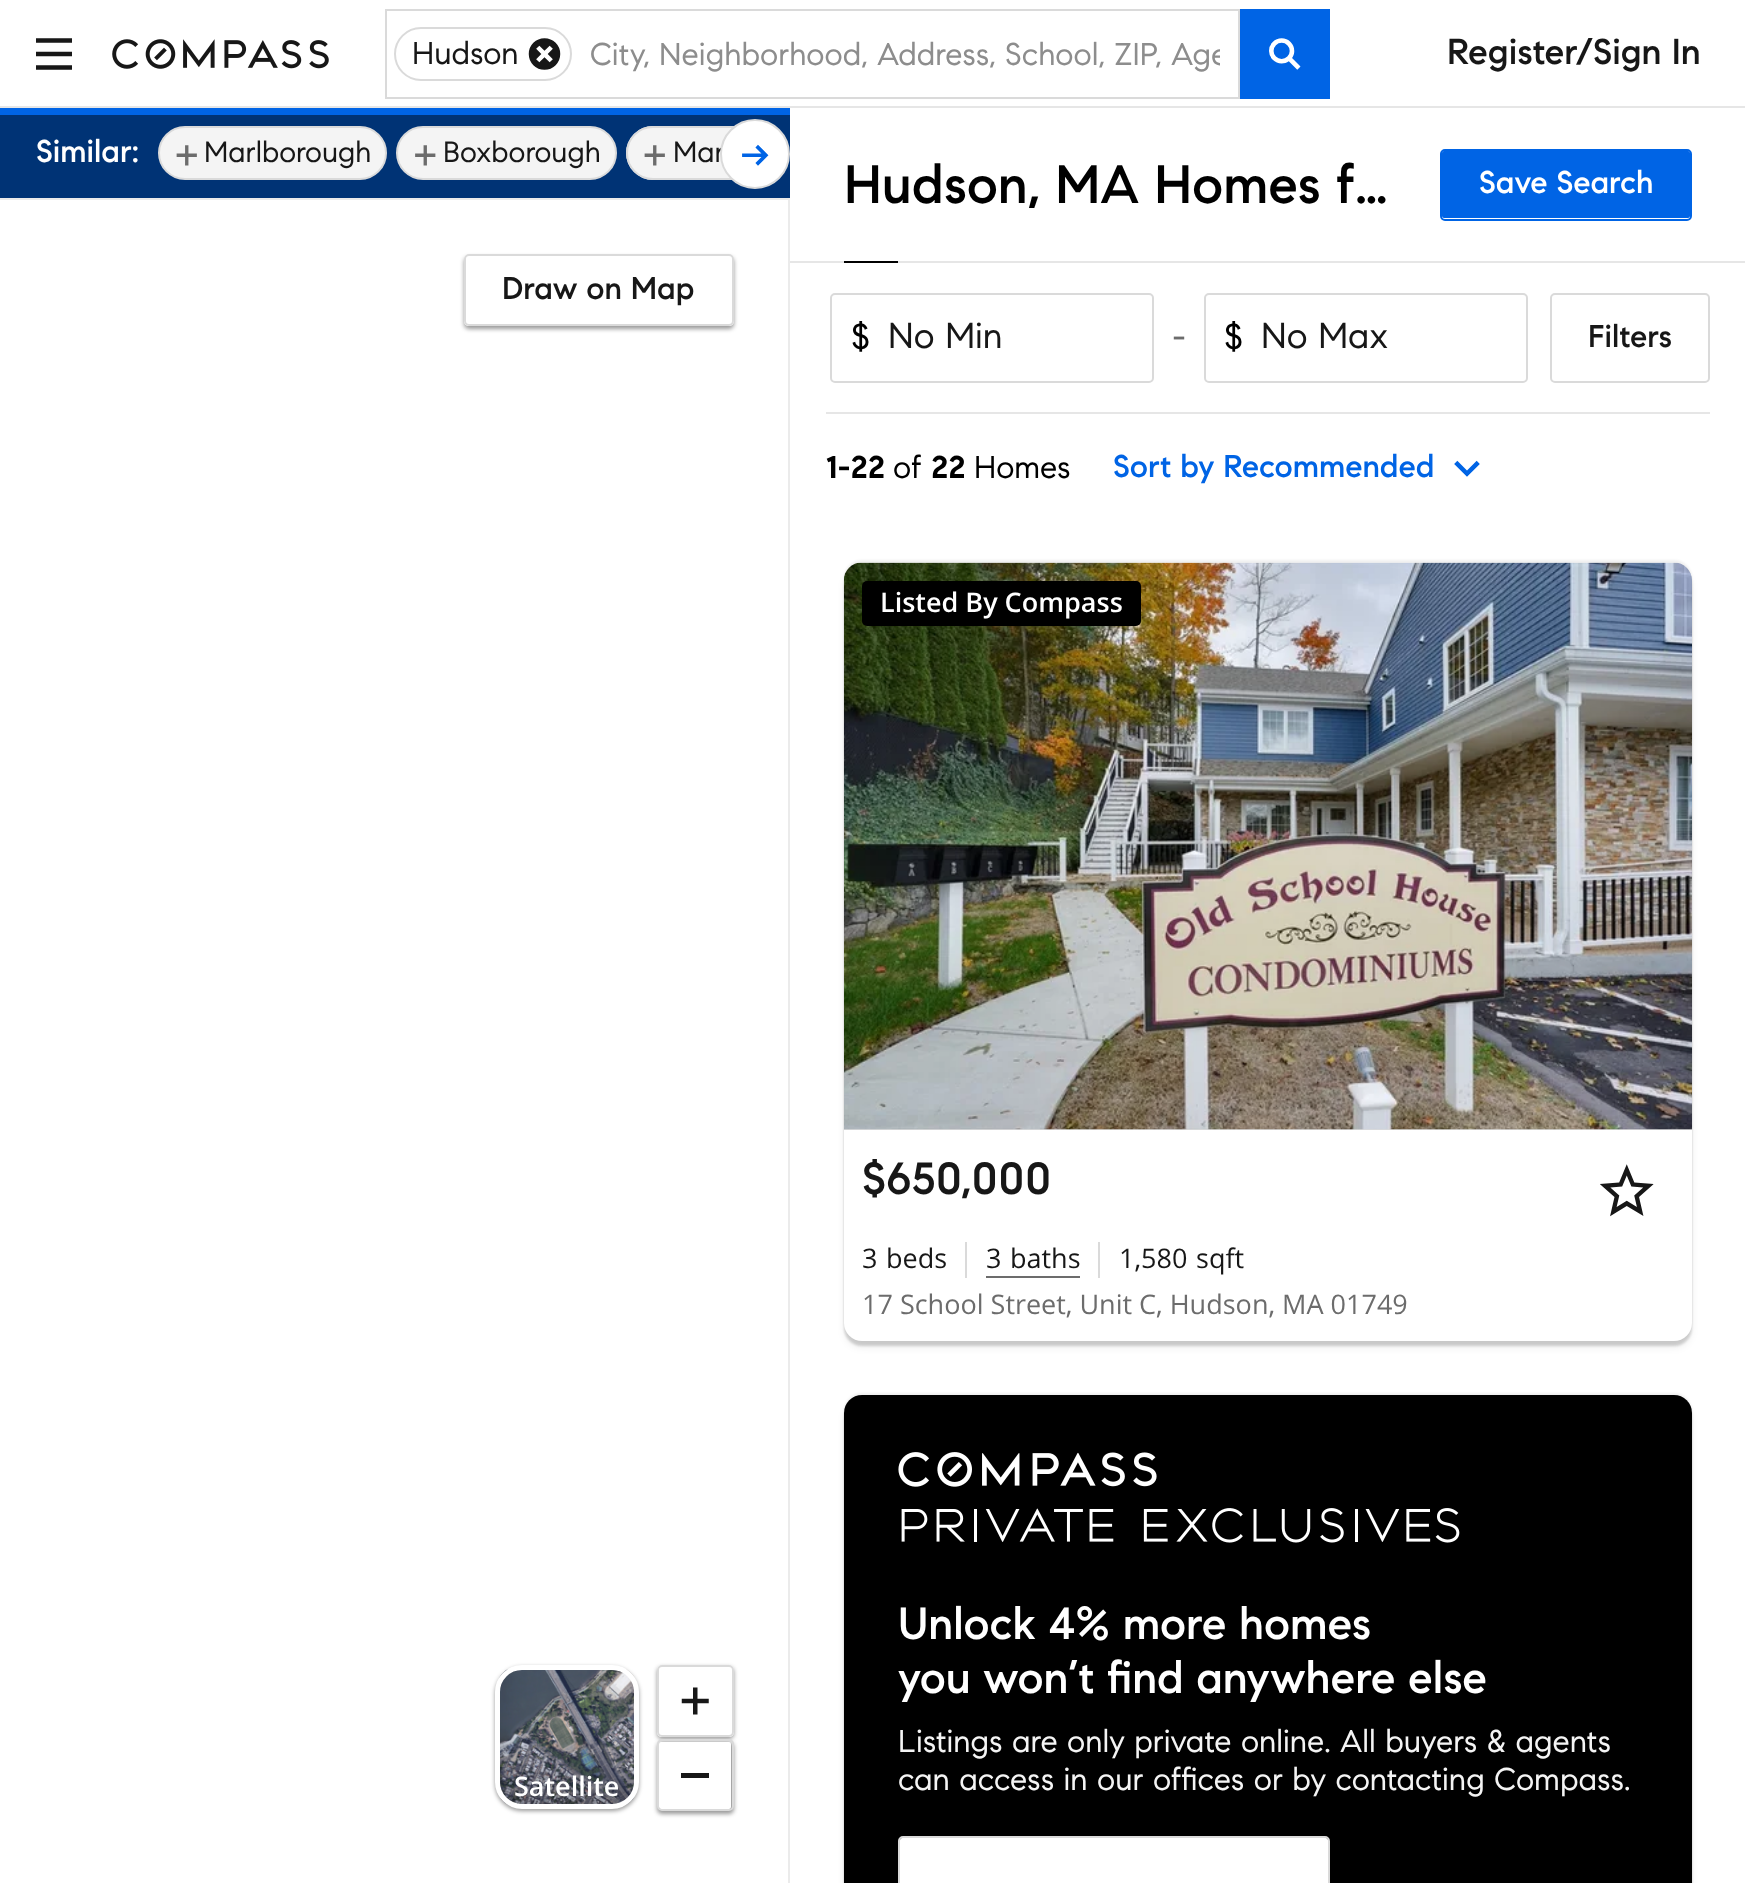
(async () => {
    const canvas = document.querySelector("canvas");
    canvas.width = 1745;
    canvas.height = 1883;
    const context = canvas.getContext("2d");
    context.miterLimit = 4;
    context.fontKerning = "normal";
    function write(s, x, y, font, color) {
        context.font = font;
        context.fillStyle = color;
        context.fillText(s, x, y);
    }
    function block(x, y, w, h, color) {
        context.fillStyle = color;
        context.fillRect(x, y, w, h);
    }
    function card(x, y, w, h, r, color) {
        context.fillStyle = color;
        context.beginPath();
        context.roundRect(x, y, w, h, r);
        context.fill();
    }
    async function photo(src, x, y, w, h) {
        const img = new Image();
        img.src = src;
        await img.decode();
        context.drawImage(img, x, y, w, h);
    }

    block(0, 0, 1745, 1883, "rgb(255, 255, 255)");
    block(0, 106, 1745, 2, "rgb(230, 230, 230)");
    await photo("media/1.png", 36, 38, 36, 32);
    await photo("media/2.png", 112, 39, 217, 30);
    context.strokeStyle = "rgb(218, 218, 218)";
    context.lineWidth = 2;
    context.strokeRect(386, 10, 853, 88);
    context.beginPath();
    context.roundRect(395, 28, 176, 52, 26);
    context.stroke();
    write("Hudson", 412, 64, "31.5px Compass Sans", "rgb(23, 23, 23)");
    await photo("media/3.png", 528, 38, 33, 32);
    context.save();
    context.beginPath();
    context.rect(590, 36, 630, 38);
    context.clip();
    write("City, Neighborhood, Address, School, ZIP, Age", 590, 65, "31.5px Compass Sans", "rgb(141, 141, 141)");
    context.restore();
    block(1240, 9, 90, 90, "rgb(0, 100, 229)");
    await photo("media/4.png", 1269, 38, 32, 32);
    write("Register/Sign In", 1447, 64, "500 36px Compass Sans", "rgb(23, 23, 23)");
    block(0, 108, 790, 7, "rgb(0, 100, 229)");
    block(0, 115, 790, 83, "rgb(0, 51, 117)");
    write("Similar:", 36, 162, "500 31.5px Compass Sans", "rgb(255, 255, 255)");
    context.fillStyle = "rgb(244, 244, 244)";
    context.beginPath();
    context.roundRect(159, 127, 227, 52, 26);
    context.fill();
    context.stroke();
    await photo("media/5.png", 176, 145, 21, 21);
    write("Marlborough", 204, 162, "29.25px Compass Sans", "rgb(23, 23, 23)");
    context.fillStyle = "rgb(244, 244, 244)";
    context.beginPath();
    context.roundRect(397, 127, 219, 52, 26);
    context.fill();
    context.stroke();
    await photo("media/6.png", 415, 145, 21, 21);
    write("Boxborough", 443, 162, "29.25px Compass Sans", "rgb(23, 23, 23)");
    context.fillStyle = "rgb(244, 244, 244)";
    context.beginPath();
    context.roundRect(626, 126, 150, 54, [27, 0, 0, 27]);
    context.fill();
    context.save();
    context.beginPath();
    context.rect(36, 110, 740, 88);
    context.clip();
    context.beginPath();
    context.roundRect(627, 127, 349, 52, 26);
    context.stroke();
    context.restore();
    await photo("media/5.png", 644, 145, 21, 21);
    write("Mar", 673, 162, "29.25px Compass Sans", "rgb(23, 23, 23)");
    context.fillStyle = "rgb(255, 255, 255)";
    context.beginPath();
    context.arc(755, 154, 34, 0, Math.PI * 2);
    context.fill();
    context.stroke();
    await photo("media/7.png", 742, 144, 27, 22);
    context.fillStyle = "rgb(235, 235, 235)";
    context.beginPath();
    context.moveTo(0, 198);
    context.lineTo(790, 198);
    context.lineTo(788, 200);
    context.lineTo(0, 200);
    context.closePath();
    context.fill();
    context.fillStyle = "rgba(0, 0, 0, 0.08)";
    context.beginPath();
    context.moveTo(790, 198);
    context.lineTo(790, 1883);
    context.lineTo(788, 1883);
    context.lineTo(788, 200);
    context.closePath();
    context.fill();
    context.save();
    context.beginPath();
    context.moveTo(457, 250);
    context.lineTo(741, 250);
    context.lineTo(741, 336);
    context.lineTo(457, 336);
    context.closePath();
    context.moveTo(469, 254);
    context.lineTo(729, 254);
    context.bezierCurveTo(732, 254, 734, 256, 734, 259);
    context.lineTo(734, 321);
    context.bezierCurveTo(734, 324, 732, 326, 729, 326);
    context.lineTo(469, 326);
    context.bezierCurveTo(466, 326, 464, 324, 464, 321);
    context.lineTo(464, 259);
    context.bezierCurveTo(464, 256, 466, 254, 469, 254);
    context.closePath();
    context.clip("evenodd");
    context.fillStyle = "rgba(0, 0, 0, 0.4)";
    context.filter = "blur(2px)";
    context.beginPath();
    context.roundRect(464, 257, 270, 72, 5);
    context.fill();
    context.filter = "none";
    context.restore();
    context.beginPath();
    context.roundRect(465, 255, 268, 70, 4);
    context.stroke();
    write("Draw on Map", 502, 299, "500 31.5px Compass Sans", "rgb(23, 23, 23)");
    context.fillStyle = "rgba(0, 0, 0, 0.4)";
    context.filter = "blur(2px)";
    context.beginPath();
    context.roundRect(495, 1667, 144, 144, 27);
    context.fill();
    context.filter = "none";
    await photo("media/8.png", 499, 1669, 136, 136);
    context.beginPath();
    context.roundRect(497.5, 1667.5, 139, 139, 24.5);
    context.strokeStyle = "rgb(255, 255, 255)";
    context.lineWidth = 5;
    context.stroke();
    write("Satellite", 514, 1796, "600 27px Open Sans", "rgb(255, 255, 255)");
    context.save();
    context.beginPath();
    context.moveTo(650, 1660);
    context.lineTo(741, 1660);
    context.lineTo(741, 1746);
    context.lineTo(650, 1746);
    context.closePath();
    context.moveTo(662, 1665);
    context.lineTo(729, 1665);
    context.bezierCurveTo(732, 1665, 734, 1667, 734, 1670);
    context.lineTo(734, 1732);
    context.bezierCurveTo(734, 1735, 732, 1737, 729, 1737);
    context.lineTo(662, 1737);
    context.bezierCurveTo(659, 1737, 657, 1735, 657, 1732);
    context.lineTo(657, 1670);
    context.bezierCurveTo(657, 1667, 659, 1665, 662, 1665);
    context.closePath();
    context.clip("evenodd");
    context.fillStyle = "rgba(0, 0, 0, 0.4)";
    context.filter = "blur(2px)";
    context.beginPath();
    context.roundRect(657, 1667, 77, 72, 5);
    context.fill();
    context.filter = "none";
    context.restore();
    context.beginPath();
    context.roundRect(658, 1666, 75, 70, 4);
    context.strokeStyle = "rgb(218, 218, 218)";
    context.lineWidth = 2;
    context.stroke();
    await photo("media/9.png", 681, 1687, 28, 28);
    context.fillStyle = "rgba(0, 0, 0, 0.4)";
    context.filter = "blur(2px)";
    context.beginPath();
    context.roundRect(657, 1742, 77, 72, 5);
    context.fill();
    context.filter = "none";
    card(659, 1742, 72, 67, 2, "rgb(255, 255, 255)");
    context.beginPath();
    context.roundRect(658, 1740, 75, 70, 4);
    context.stroke();
    block(681, 1773, 28, 5, "rgb(23, 23, 23)");
    block(790, 261, 955, 2, "rgb(230, 230, 230)");
    write("Hudson, MA Homes f…", 844, 203, "500 54px Compass Sans", "rgb(0, 0, 0)");
    card(1442, 151, 248, 67, 2, "rgb(0, 100, 229)");
    context.beginPath();
    context.roundRect(1441, 150, 250, 70, 4);
    context.strokeStyle = "rgb(0, 100, 229)";
    context.stroke();
    write("Save Search", 1479, 193, "500 31.5px Compass Sans", "rgb(255, 255, 255)");
    block(844, 261, 54, 2, "rgb(0, 0, 0)");
    context.beginPath();
    context.roundRect(831, 294, 322, 88, 4);
    context.strokeStyle = "rgb(218, 218, 218)";
    context.stroke();
    write("$", 851, 349, "36px Compass Sans", "rgb(0, 0, 0)");
    write("No Min", 888, 348, "36px Compass Sans", "rgb(23, 23, 23)");
    write("-", 1172, 349, "36px Compass Sans", "rgb(108, 108, 108)");
    context.beginPath();
    context.roundRect(1205, 294, 322, 88, 4);
    context.stroke();
    write("$", 1224, 349, "36px Compass Sans", "rgb(0, 0, 0)");
    write("No Max", 1261, 348, "36px Compass Sans", "rgb(23, 23, 23)");
    context.beginPath();
    context.roundRect(1551, 294, 158, 88, 4);
    context.stroke();
    write("Filters", 1588, 347, "500 31.5px Compass Sans", "rgb(23, 23, 23)");
    block(826, 412, 884, 2, "rgb(230, 230, 230)");
    write("1-22", 826, 478, "bold 31.5px Compass Sans", "rgb(0, 0, 0)");
    write("of", 893, 478, "31.5px Compass Sans", "rgb(0, 0, 0)");
    write("22", 931, 478, "bold 31.5px Compass Sans", "rgb(0, 0, 0)");
    write("Homes", 974, 478, "31.5px Compass Sans", "rgb(0, 0, 0)");
    write("Sort by Recommended", 1113, 477, "500 31.5px Compass Sans", "rgb(0, 100, 229)");
    await photo("media/10.png", 1454, 460, 26, 17);
    context.fillStyle = "rgba(0, 0, 0, 0.06)";
    context.filter = "blur(1px)";
    context.beginPath();
    context.roundRect(844, 560, 848, 779, 18);
    context.fill();
    context.filter = "none";
    context.fillStyle = "rgba(0, 0, 0, 0.14)";
    context.filter = "blur(1px)";
    context.beginPath();
    context.roundRect(844, 567, 848, 779, 18);
    context.fill();
    context.filter = "none";
    context.fillStyle = "rgba(0, 0, 0, 0.1)";
    context.filter = "blur(4.5px)";
    context.beginPath();
    context.roundRect(846, 572, 844, 774, 16);
    context.fill();
    context.filter = "none";
    card(844, 563, 848, 778, 18, "rgb(255, 255, 255)");
    context.fillStyle = "rgb(218, 218, 218)";
    context.beginPath();
    context.roundRect(844, 563, 848, 567, [18, 18, 0, 0]);
    context.fill();
    await photo("media/11.png", 844, 562, 848, 568);
    card(862, 581, 279, 45, 5, "rgb(0, 0, 0)");
    write("Listed By Compass", 880, 612, "600 27px Open Sans", "rgb(255, 255, 255)");
    write("$650,000", 862, 1194, "500 45px Compass Sans", "rgb(23, 23, 23)");
    await photo("media/12.png", 1600, 1164, 54, 53);
    write("3", 862, 1268, "27px Open Sans", "rgb(23, 23, 23)");
    write("beds", 886, 1268, "27px Open Sans", "rgb(23, 23, 23)");
    block(965, 1242, 2, 36, "rgb(218, 218, 218)");
    block(986, 1276, 94, 2, "rgb(108, 108, 108)");
    write("3", 986, 1268, "27px Open Sans", "rgb(23, 23, 23)");
    write("baths", 1010, 1268, "27px Open Sans", "rgb(23, 23, 23)");
    block(1098, 1242, 2, 36, "rgb(218, 218, 218)");
    write("1,580", 1119, 1268, "27px Open Sans", "rgb(23, 23, 23)");
    write("sqft", 1196, 1268, "27px Open Sans", "rgb(23, 23, 23)");
    write("17 School Street, Unit C, Hudson, MA 01749", 862, 1314, "27px Open Sans", "rgb(108, 108, 108)");
    context.fillStyle = "rgba(0, 0, 0, 0.06)";
    context.filter = "blur(1px)";
    context.beginPath();
    context.roundRect(844, 1393, 848, 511, 18);
    context.fill();
    context.filter = "none";
    context.fillStyle = "rgba(0, 0, 0, 0.14)";
    context.filter = "blur(1px)";
    context.beginPath();
    context.roundRect(844, 1400, 848, 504, 18);
    context.fill();
    context.filter = "none";
    context.fillStyle = "rgba(0, 0, 0, 0.1)";
    context.filter = "blur(4.5px)";
    context.beginPath();
    context.roundRect(846, 1404, 844, 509, 16);
    context.fill();
    context.filter = "none";
    context.fillStyle = "rgb(0, 0, 0)";
    context.beginPath();
    context.roundRect(844, 1395, 848, 488, [18, 18, 0, 0]);
    context.fill();
    await photo("media/13.png", 898, 1452, 562, 91);
    write("Unlock 4% more homes", 898, 1639, "500 45px Compass Sans", "rgb(255, 255, 255)");
    write("you won’t find anywhere else", 898, 1693, "500 45px Compass Sans", "rgb(255, 255, 255)");
    write("Listings are only private online. All buyers & agents", 898, 1752, "31.5px Compass Sans", "rgb(244, 244, 244)");
    write("can access in our offices or by contacting Compass.", 898, 1790, "31.5px Compass Sans", "rgb(244, 244, 244)");
    context.fillStyle = "rgb(255, 255, 255)";
    context.beginPath();
    context.roundRect(900, 1838, 428, 45, [2, 2, 0, 0]);
    context.fill();
    context.beginPath();
    context.roundRect(899, 1837, 430, 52, 4);
    context.stroke();
})();
